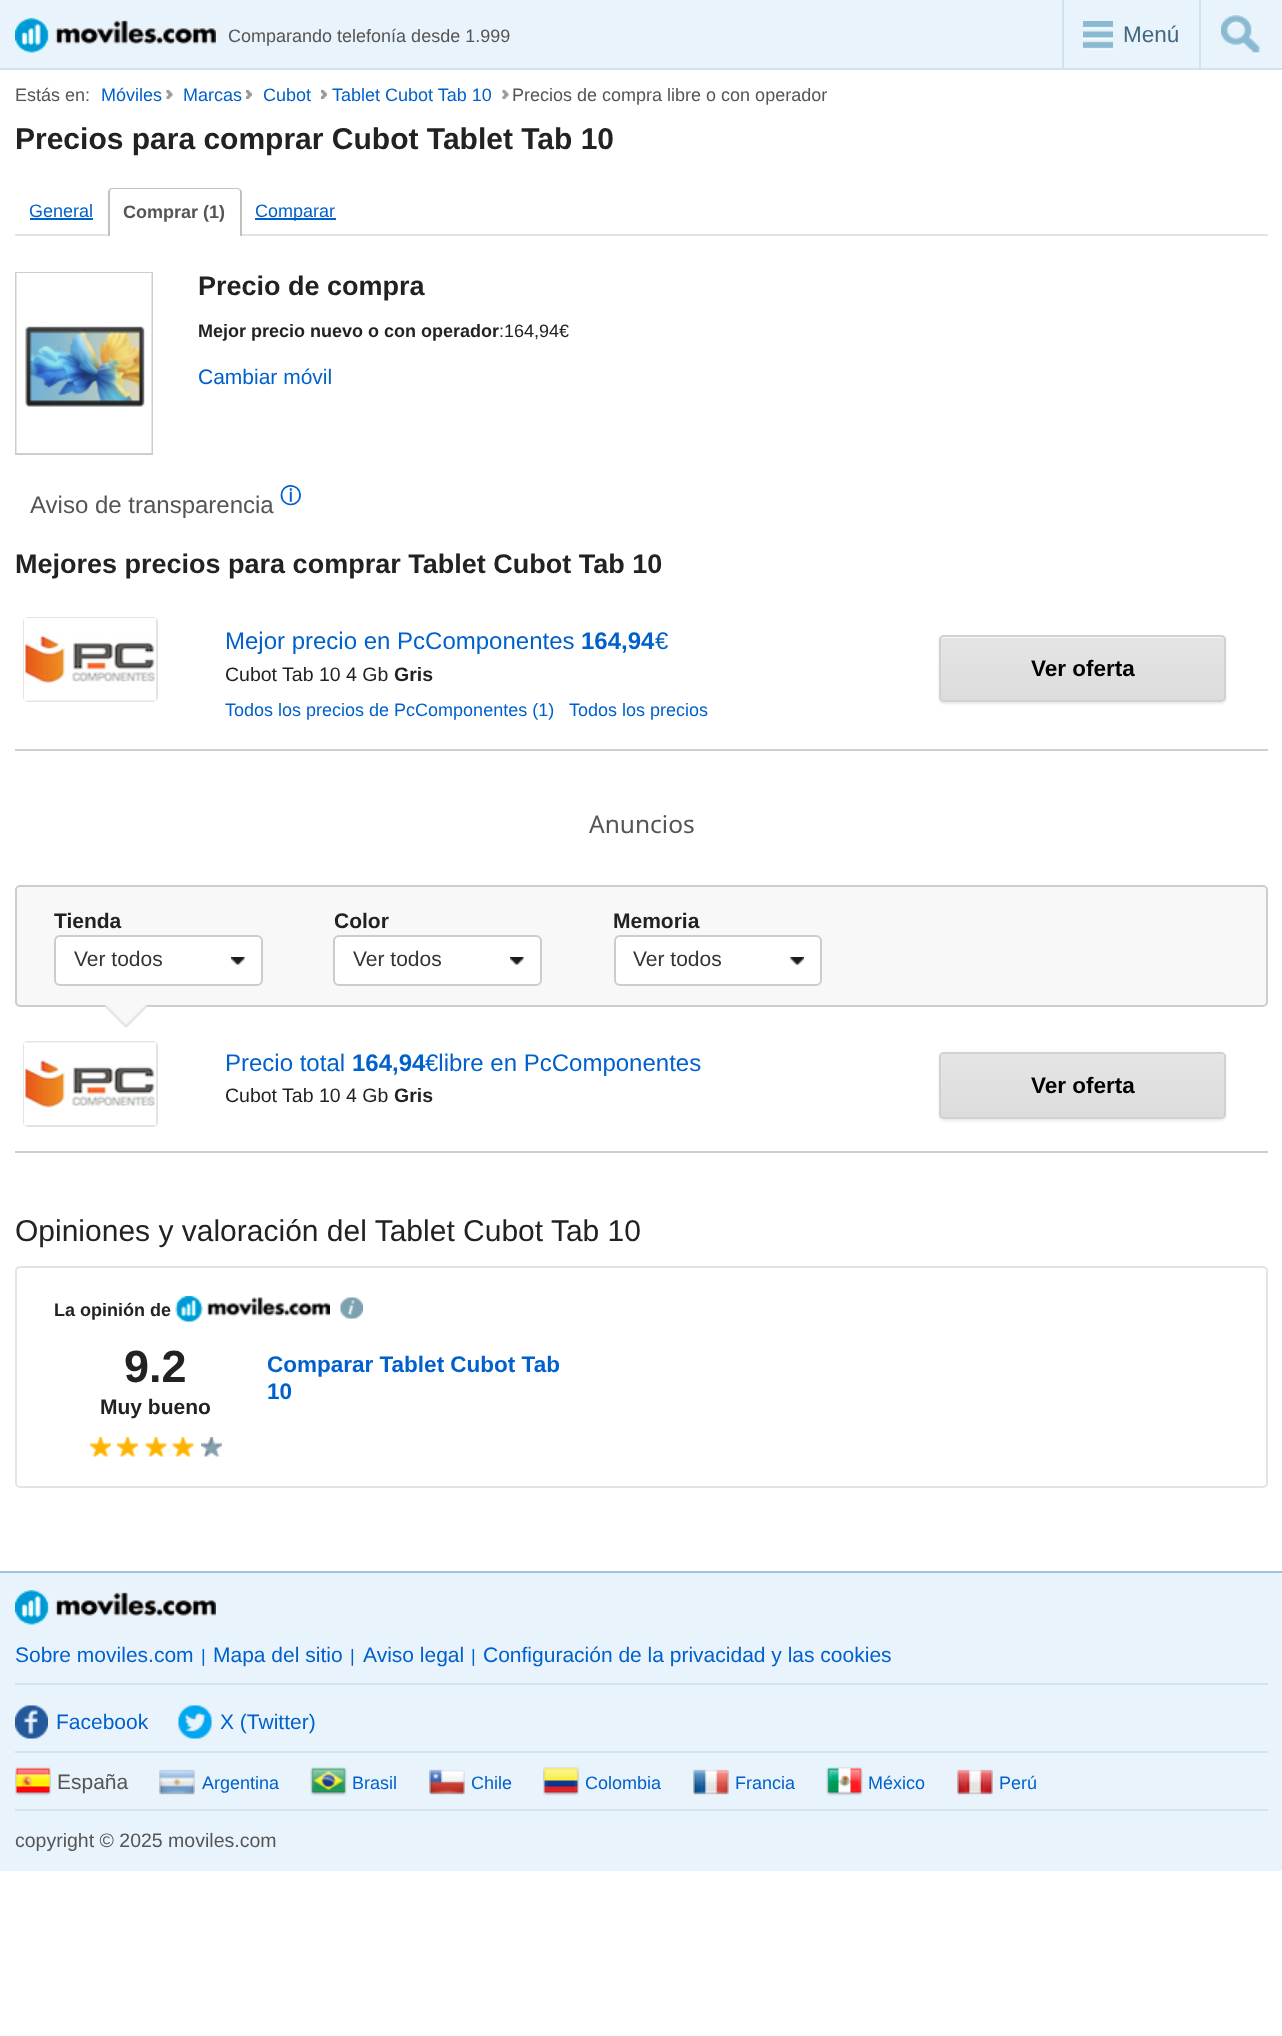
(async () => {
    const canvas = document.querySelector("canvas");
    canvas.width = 1282;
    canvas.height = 2036;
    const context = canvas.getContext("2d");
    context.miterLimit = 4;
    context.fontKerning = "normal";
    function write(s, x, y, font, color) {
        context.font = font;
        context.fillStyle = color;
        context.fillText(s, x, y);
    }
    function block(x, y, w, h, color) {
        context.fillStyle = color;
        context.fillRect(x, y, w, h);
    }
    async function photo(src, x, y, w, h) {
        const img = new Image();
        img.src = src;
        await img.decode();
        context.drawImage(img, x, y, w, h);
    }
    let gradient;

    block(0, 0, 1282, 2036, "rgb(255, 255, 255)");
    block(0, 0, 1282, 68, "rgb(233, 243, 252)");
    block(0, 68, 1282, 2, "rgb(210, 227, 240)");
    await photo("media/1.png", 15, 18, 201, 35);
    write("Comparando telefonía desde 1.999", 228, 42, "18px Liberation Sans", "rgb(85, 85, 85)");
    block(1199, 0, 2, 69, "rgb(210, 227, 240)");
    block(1062, 0, 2, 69, "rgb(210, 227, 240)");
    await photo("media/2.png", 1083, 21, 30, 29);
    write("Menú", 1123, 42, "22.5px Liberation Sans", "rgb(66, 103, 128)");
    await photo("media/3.png", 1221, 15, 39, 39);
    write("Estás en:", 15, 101, "18px Liberation Sans", "rgb(85, 85, 85)");
    write("Móviles", 101, 101, "18px Liberation Sans", "rgb(0, 97, 204)");
    await photo("media/4.png", 166, 90, 7, 9);
    write("Marcas", 183, 101, "18px Liberation Sans", "rgb(0, 97, 204)");
    await photo("media/5.png", 246, 90, 6, 9);
    write("Cubot", 263, 101, "18px Liberation Sans", "rgb(0, 97, 204)");
    await photo("media/6.png", 321, 90, 6, 9);
    write("Tablet Cubot Tab 10", 332, 101, "18px Liberation Sans", "rgb(0, 97, 204)");
    await photo("media/4.png", 502, 90, 7, 9);
    write("Precios de compra libre o con operador", 512, 101, "18px Liberation Sans", "rgb(85, 85, 85)");
    write("Precios para comprar Cubot Tablet Tab 10", 15, 149, "bold 30px Liberation Sans", "rgb(34, 34, 34)");
    block(15, 234, 1253, 2, "rgb(228, 228, 228)");
    write("General", 29, 217, "18px Liberation Sans", "rgb(0, 97, 204)");
    block(30, 218, 63, 2, "rgb(0, 97, 204)");
    context.fillStyle = "rgb(255, 255, 255)";
    context.beginPath();
    context.roundRect(110, 189, 130, 47, [3, 3, 0, 0]);
    context.fill();
    context.fillStyle = "rgb(193, 193, 193)";
    context.beginPath();
    context.moveTo(112, 188);
    context.lineTo(237, 188);
    context.bezierCurveTo(239, 188, 242, 190, 242, 192);
    context.lineTo(242, 236);
    context.lineTo(108, 236);
    context.lineTo(108, 192);
    context.bezierCurveTo(108, 190, 110, 188, 112, 188);
    context.closePath();
    context.moveTo(112, 189);
    context.lineTo(237, 189);
    context.bezierCurveTo(239, 189, 240, 190, 240, 192);
    context.lineTo(240, 236);
    context.lineTo(110, 236);
    context.lineTo(110, 192);
    context.bezierCurveTo(110, 190, 111, 189, 112, 189);
    context.closePath();
    context.fill("evenodd");
    write("Comprar (1)", 123, 218, "bold 18px Liberation Sans", "rgb(85, 85, 85)");
    block(255, 218, 81, 2, "rgb(0, 97, 204)");
    write("Comparar", 255, 217, "18px Liberation Sans", "rgb(0, 97, 204)");
    context.strokeStyle = "rgb(205, 205, 205)";
    context.lineWidth = 2;
    context.strokeRect(16, 273, 136, 181);
    await photo("media/7.png", 16, 273, 136, 180);
    write("Precio de compra", 198, 295, "bold 27px Liberation Sans", "rgb(34, 34, 34)");
    write("Mejor precio nuevo o con operador", 198, 337, "bold 18px Liberation Sans", "rgb(34, 34, 34)");
    write(":164,94€", 499, 337, "18px Liberation Sans", "rgb(34, 34, 34)");
    write("Cambiar móvil", 198, 384, "21px Liberation Sans", "rgb(0, 97, 204)");
    write("Aviso de transparencia", 30, 513, "24px Liberation Sans", "rgb(85, 85, 85)");
    write("ⓘ", 280, 503, "bold 21px WenQuanYi Zen Hei", "rgb(0, 97, 204)");
    write("Mejores precios para comprar Tablet Cubot Tab 10", 15, 573, "bold 27px Liberation Sans", "rgb(34, 34, 34)");
    block(15, 749, 1253, 2, "rgb(206, 206, 206)");
    context.beginPath();
    context.roundRect(24, 618, 133, 83, 4);
    context.strokeStyle = "rgb(228, 228, 228)";
    context.stroke();
    await photo("media/8.png", 24, 618, 132, 83);
    write("Mejor precio en PcComponentes", 225, 649, "24px Liberation Sans", "rgb(0, 97, 204)");
    write("164,94", 581, 649, "bold 24px Liberation Sans", "rgb(0, 97, 204)");
    write("€", 655, 649, "24px Liberation Sans", "rgb(0, 97, 204)");
    write("Cubot Tab 10 4 Gb", 225, 681, "19.5px Liberation Sans", "rgb(34, 34, 34)");
    write("Gris", 394, 681, "bold 19.5px Liberation Sans", "rgb(34, 34, 34)");
    write("Todos los precios de PcComponentes (1)", 225, 716, "18px Liberation Sans", "rgb(0, 97, 204)");
    write("Todos los precios", 569, 716, "18px Liberation Sans", "rgb(0, 97, 204)");
    context.fillStyle = "rgb(234, 234, 234)";
    context.filter = "blur(1px)";
    context.beginPath();
    context.roundRect(939, 636, 287, 68, 5);
    context.fill();
    context.filter = "none";
    context.save();
    context.beginPath();
    context.roundRect(939, 635, 287, 67, 5);
    context.clip();
    gradient = context.createLinearGradient(1082, 636, 1082, 701);
    gradient.addColorStop(0, "rgb(229, 229, 229)");
    gradient.addColorStop(1, "rgb(220, 220, 220)");
    context.fillStyle = gradient;
    context.fillRect(939, 636, 287, 65);
    context.restore();
    context.fillStyle = "rgb(248, 248, 248)";
    context.beginPath();
    context.moveTo(944, 638);
    context.lineTo(1221, 638);
    context.bezierCurveTo(1223, 638, 1224, 639, 1224, 640);
    context.lineTo(1224, 639);
    context.bezierCurveTo(1224, 637, 1223, 636, 1221, 636);
    context.lineTo(944, 636);
    context.bezierCurveTo(942, 636, 941, 637, 941, 639);
    context.closePath();
    context.fill();
    context.beginPath();
    context.roundRect(940, 636, 285, 65, 4);
    context.strokeStyle = "rgb(209, 209, 209)";
    context.stroke();
    write("Ver oferta", 1031, 676, "bold 22.5px Liberation Sans", "rgb(0, 0, 0)");
    write("Anuncios", 589, 833, "24.5px Noto Sans", "rgb(85, 85, 85)");
    context.fillStyle = "rgb(248, 248, 248)";
    context.beginPath();
    context.roundRect(16, 886, 1251, 120, 4);
    context.fill();
    context.strokeStyle = "rgb(205, 205, 205)";
    context.stroke();
    write("Tienda", 54, 928, "bold 21px Liberation Sans", "rgb(34, 34, 34)");
    context.fillStyle = "rgb(255, 255, 255)";
    context.beginPath();
    context.roundRect(55, 936, 207, 49, 5);
    context.fill();
    context.strokeStyle = "rgb(204, 204, 204)";
    context.stroke();
    write("Ver todos", 74, 966, "21px Liberation Sans", "rgb(51, 51, 51)");
    await photo("media/9.png", 231, 957, 14, 8);
    write("Color", 334, 928, "bold 21px Liberation Sans", "rgb(34, 34, 34)");
    context.fillStyle = "rgb(255, 255, 255)";
    context.beginPath();
    context.roundRect(334, 936, 207, 49, 5);
    context.fill();
    context.stroke();
    write("Ver todos", 353, 966, "21px Liberation Sans", "rgb(51, 51, 51)");
    await photo("media/9.png", 510, 957, 14, 8);
    write("Memoria", 613, 928, "bold 21px Liberation Sans", "rgb(34, 34, 34)");
    context.fillStyle = "rgb(255, 255, 255)";
    context.beginPath();
    context.roundRect(615, 936, 206, 49, 5);
    context.fill();
    context.stroke();
    write("Ver todos", 633, 966, "21px Liberation Sans", "rgb(51, 51, 51)");
    await photo("media/10.png", 790, 957, 14, 8);
    await photo("media/11.png", 105, 1005, 42, 23);
    block(15, 1151, 1253, 2, "rgb(206, 206, 206)");
    context.beginPath();
    context.roundRect(24, 1042, 133, 84, 4);
    context.strokeStyle = "rgb(228, 228, 228)";
    context.stroke();
    await photo("media/12.png", 24, 1042, 132, 83);
    write("Precio total", 225, 1071, "24px Liberation Sans", "rgb(0, 97, 204)");
    write("164,94", 352, 1071, "bold 24px Liberation Sans", "rgb(0, 97, 204)");
    write("€libre en PcComponentes", 425, 1071, "24px Liberation Sans", "rgb(0, 97, 204)");
    write("Cubot Tab 10 4 Gb", 225, 1102, "19.5px Liberation Sans", "rgb(34, 34, 34)");
    write("Gris", 394, 1102, "bold 19.5px Liberation Sans", "rgb(34, 34, 34)");
    context.fillStyle = "rgb(234, 234, 234)";
    context.filter = "blur(1px)";
    context.beginPath();
    context.roundRect(939, 1053, 287, 68, 5);
    context.fill();
    context.filter = "none";
    context.save();
    context.beginPath();
    context.roundRect(939, 1052, 287, 67, 5);
    context.clip();
    gradient = context.createLinearGradient(1082, 1053, 1082, 1118);
    gradient.addColorStop(0, "rgb(229, 229, 229)");
    gradient.addColorStop(1, "rgb(220, 220, 220)");
    context.fillStyle = gradient;
    context.fillRect(939, 1053, 287, 65);
    context.restore();
    context.fillStyle = "rgb(248, 248, 248)";
    context.beginPath();
    context.moveTo(944, 1054);
    context.lineTo(1221, 1054);
    context.lineTo(1223, 1055);
    context.lineTo(1224, 1058);
    context.lineTo(1224, 1056);
    context.bezierCurveTo(1224, 1054, 1223, 1053, 1221, 1053);
    context.lineTo(944, 1053);
    context.bezierCurveTo(943, 1053, 941, 1054, 941, 1055);
    context.closePath();
    context.fill();
    context.beginPath();
    context.roundRect(940, 1053, 285, 65, 4);
    context.strokeStyle = "rgb(209, 209, 209)";
    context.stroke();
    write("Ver oferta", 1031, 1093, "bold 22.5px Liberation Sans", "rgb(0, 0, 0)");
    write("Opiniones y valoración del Tablet Cubot Tab 10", 15, 1241, "30px Liberation Sans", "rgb(34, 34, 34)");
    context.beginPath();
    context.roundRect(16, 1267, 1251, 220, 4);
    context.strokeStyle = "rgb(228, 228, 228)";
    context.stroke();
    write("La opinión de", 54, 1316, "bold 18px Liberation Sans", "rgb(34, 34, 34)");
    await photo("media/13.png", 175, 1296, 155, 26);
    await photo("media/14.png", 340, 1297, 23, 22);
    write("9.2", 124, 1382, "bold 45px Liberation Sans", "rgb(34, 34, 34)");
    write("Muy bueno", 100, 1414, "bold 21px Liberation Sans", "rgb(34, 34, 34)");
    await photo("media/15.png", 90, 1437, 21, 20);
    await photo("media/15.png", 117, 1437, 21, 20);
    await photo("media/16.png", 145, 1437, 22, 20);
    await photo("media/16.png", 172, 1437, 22, 20);
    await photo("media/17.png", 201, 1437, 21, 20);
    write("Comparar Tablet Cubot Tab", 267, 1372, "bold 22.5px Liberation Sans", "rgb(0, 97, 204)");
    write("10", 267, 1399, "bold 22.5px Liberation Sans", "rgb(0, 97, 204)");
    block(0, 1573, 1282, 298, "rgb(233, 243, 252)");
    block(0, 1571, 1282, 2, "rgb(157, 195, 220)");
    await photo("media/1.png", 15, 1590, 201, 35);
    block(15, 1683, 1253, 2, "rgb(210, 227, 240)");
    write("Sobre moviles.com", 15, 1662, "21px Liberation Sans", "rgb(0, 97, 204)");
    write("|", 201, 1662, "18px Liberation Sans", "rgb(0, 97, 204)");
    write("Mapa del sitio", 213, 1662, "21px Liberation Sans", "rgb(0, 97, 204)");
    write("|", 350, 1662, "18px Liberation Sans", "rgb(0, 97, 204)");
    write("Aviso legal", 363, 1662, "21px Liberation Sans", "rgb(0, 97, 204)");
    write("|", 471, 1662, "18px Liberation Sans", "rgb(0, 97, 204)");
    write("Configuración de la privacidad y las cookies", 483, 1662, "21px Liberation Sans", "rgb(0, 97, 204)");
    block(15, 1751, 1253, 2, "rgb(210, 227, 240)");
    await photo("media/18.png", 15, 1705, 33, 34);
    write("Facebook", 56, 1729, "21px Liberation Sans", "rgb(0, 97, 204)");
    await photo("media/19.png", 178, 1705, 34, 34);
    write("X (Twitter)", 220, 1729, "21px Liberation Sans", "rgb(0, 97, 204)");
    block(15, 1809, 1253, 2, "rgb(210, 227, 240)");
    await photo("media/20.png", 15, 1767, 36, 29);
    write("España", 57, 1789, "21px Liberation Sans", "rgb(85, 85, 85)");
    await photo("media/21.png", 159, 1769, 36, 26);
    write("Argentina", 202, 1789, "18px Liberation Sans", "rgb(0, 97, 204)");
    await photo("media/22.png", 310, 1767, 37, 29);
    write("Brasil", 352, 1789, "18px Liberation Sans", "rgb(0, 97, 204)");
    await photo("media/23.png", 429, 1769, 36, 26);
    write("Chile", 471, 1789, "18px Liberation Sans", "rgb(0, 97, 204)");
    await photo("media/24.png", 543, 1767, 36, 29);
    write("Colombia", 585, 1789, "18px Liberation Sans", "rgb(0, 97, 204)");
    await photo("media/25.png", 693, 1769, 36, 26);
    write("Francia", 735, 1789, "18px Liberation Sans", "rgb(0, 97, 204)");
    await photo("media/26.png", 826, 1767, 37, 29);
    write("México", 868, 1789, "18px Liberation Sans", "rgb(0, 97, 204)");
    await photo("media/27.png", 957, 1769, 36, 26);
    write("Perú", 999, 1789, "18px Liberation Sans", "rgb(0, 97, 204)");
    write("copyright © 2025 moviles.com", 15, 1847, "19.5px Liberation Sans", "rgb(85, 85, 85)");
})();
